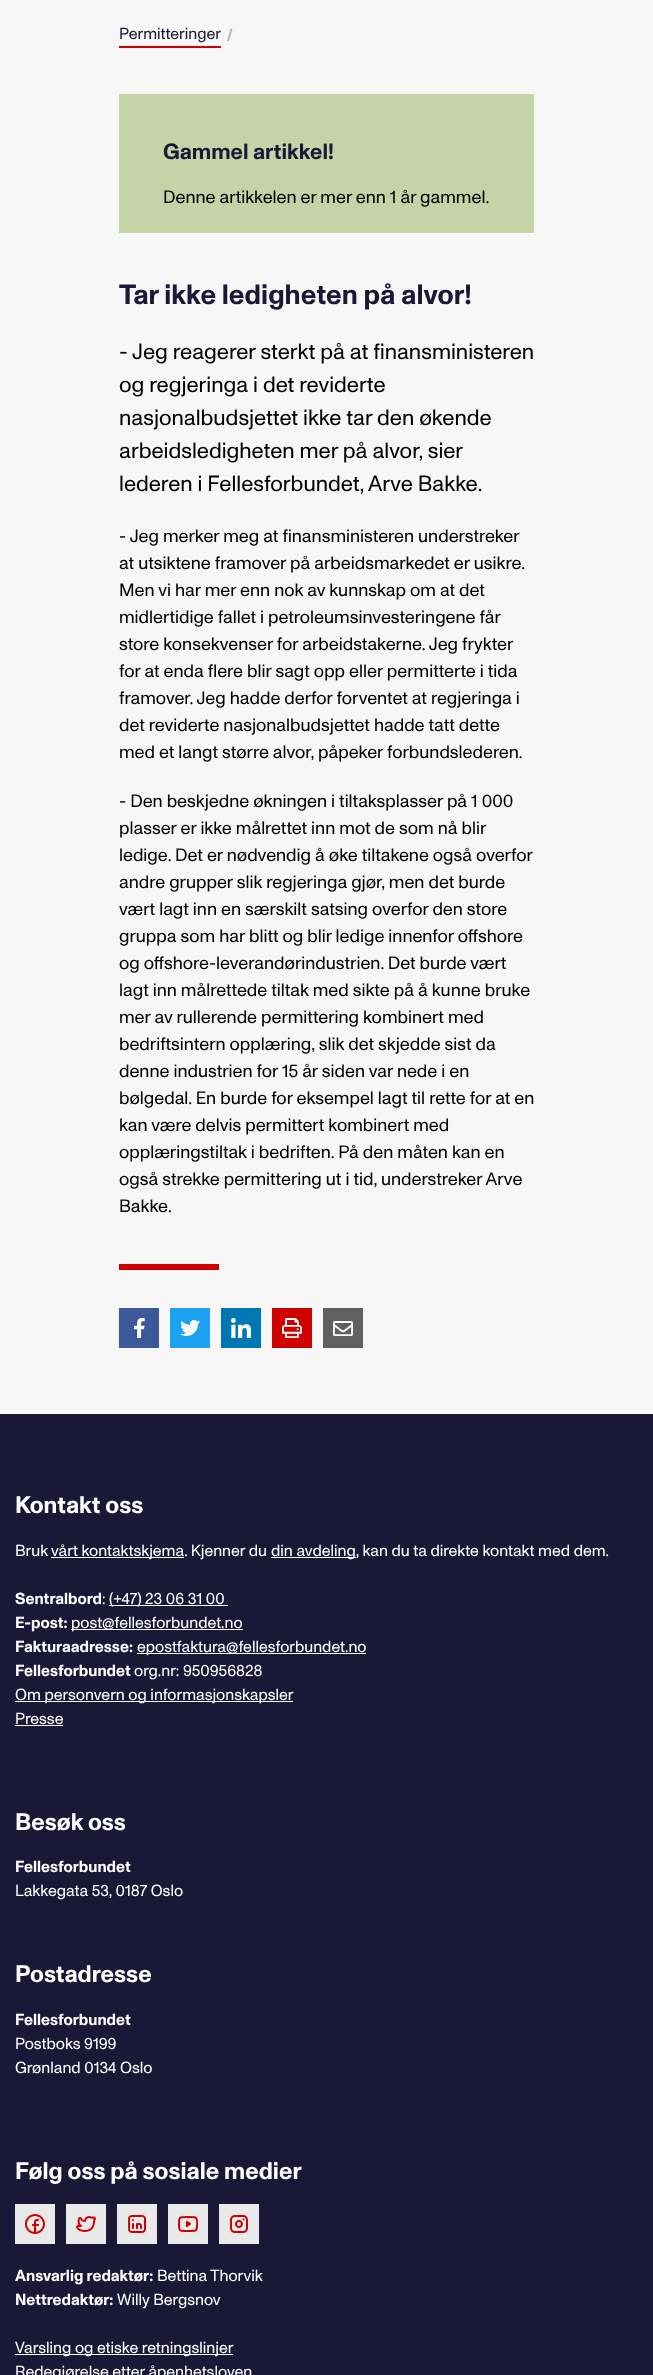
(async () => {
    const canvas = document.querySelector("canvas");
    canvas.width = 653;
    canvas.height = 2375;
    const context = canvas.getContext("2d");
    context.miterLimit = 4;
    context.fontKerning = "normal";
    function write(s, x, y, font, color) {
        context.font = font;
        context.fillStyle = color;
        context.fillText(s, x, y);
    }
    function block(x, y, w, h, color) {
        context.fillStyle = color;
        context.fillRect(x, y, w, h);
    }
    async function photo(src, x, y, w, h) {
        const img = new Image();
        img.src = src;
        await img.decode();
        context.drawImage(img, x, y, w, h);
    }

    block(0, 0, 653, 2375, "rgb(247, 247, 247)");
    block(119, 46, 102, 2, "rgb(207, 0, 0)");
    write("Permitteringer", 119, 39, "16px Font", "rgb(26, 24, 54)");
    context.fillStyle = "rgb(186, 186, 186)";
    context.beginPath();
    context.moveTo(230.5, 28.5);
    context.lineTo(232.5, 29);
    context.lineTo(229, 41.5);
    context.lineTo(227, 41);
    context.closePath();
    context.fill();
    block(119, 94, 415, 139, "rgb(197, 211, 167)");
    write("Gammel artikkel!", 163, 159, "bold 22px Font", "rgb(26, 24, 54)");
    write("Denne artikkelen er mer enn 1 år gammel.", 163, 203, "18px Font", "rgb(0, 0, 0)");
    write("Tar ikke ledigheten på alvor!", 119, 304, "bold 28px Font", "rgb(26, 24, 54)");
    write("- Jeg reagerer sterkt på at finansministeren", 119, 359, "22px Font", "rgb(0, 0, 0)");
    write("og regjeringa i det reviderte", 119, 392, "22px Font", "rgb(0, 0, 0)");
    write("nasjonalbudsjettet ikke tar den økende", 119, 425, "22px Font", "rgb(0, 0, 0)");
    write("arbeidsledigheten mer på alvor, sier", 119, 458, "22px Font", "rgb(0, 0, 0)");
    write("lederen i Fellesforbundet, Arve Bakke.", 119, 491, "22px Font", "rgb(0, 0, 0)");
    write("- Jeg merker meg at finansministeren understreker", 119, 542, "18px Font", "rgb(0, 0, 0)");
    write("at utsiktene framover på arbeidsmarkedet er usikre.", 119, 569, "18px Font", "rgb(0, 0, 0)");
    write("Men vi har mer enn nok av kunnskap om at det", 119, 596, "18px Font", "rgb(0, 0, 0)");
    write("midlertidige fallet i petroleumsinvesteringene får", 119, 623, "18px Font", "rgb(0, 0, 0)");
    write("store konsekvenser for arbeidstakerne. Jeg frykter", 119, 650, "18px Font", "rgb(0, 0, 0)");
    write("for at enda flere blir sagt opp eller permitterte i tida", 119, 677, "18px Font", "rgb(0, 0, 0)");
    write("framover. Jeg hadde derfor forventet at regjeringa i", 119, 704, "18px Font", "rgb(0, 0, 0)");
    write("det reviderte nasjonalbudsjettet hadde tatt dette", 119, 731, "18px Font", "rgb(0, 0, 0)");
    write("med et langt større alvor, påpeker forbundslederen.", 119, 758, "18px Font", "rgb(0, 0, 0)");
    write("- Den beskjedne økningen i tiltaksplasser på 1 000", 119, 807, "18px Font", "rgb(0, 0, 0)");
    write("plasser er ikke målrettet inn mot de som nå blir", 119, 834, "18px Font", "rgb(0, 0, 0)");
    write("ledige. Det er nødvendig å øke tiltakene også overfor", 119, 861, "18px Font", "rgb(0, 0, 0)");
    write("andre grupper slik regjeringa gjør, men det burde", 119, 888, "18px Font", "rgb(0, 0, 0)");
    write("vært lagt inn en særskilt satsing overfor den store", 119, 915, "18px Font", "rgb(0, 0, 0)");
    write("gruppa som har blitt og blir ledige innenfor offshore", 119, 942, "18px Font", "rgb(0, 0, 0)");
    write("og offshore-leverandørindustrien. Det burde vært", 119, 969, "18px Font", "rgb(0, 0, 0)");
    write("lagt inn målrettede tiltak med sikte på å kunne bruke", 119, 996, "18px Font", "rgb(0, 0, 0)");
    write("mer av rullerende permittering kombinert med", 119, 1023, "18px Font", "rgb(0, 0, 0)");
    write("bedriftsintern opplæring, slik det skjedde sist da", 119, 1050, "18px Font", "rgb(0, 0, 0)");
    write("denne industrien for 15 år siden var nede i en", 119, 1077, "18px Font", "rgb(0, 0, 0)");
    write("bølgedal. En burde for eksempel lagt til rette for at en", 119, 1104, "18px Font", "rgb(0, 0, 0)");
    write("kan være delvis permittert kombinert med", 119, 1131, "18px Font", "rgb(0, 0, 0)");
    write("opplæringstiltak i bedriften. På den måten kan en", 119, 1158, "18px Font", "rgb(0, 0, 0)");
    write("også strekke permittering ut i tid, understreker Arve", 119, 1185, "18px Font", "rgb(0, 0, 0)");
    write("Bakke.", 119, 1212, "18px Font", "rgb(0, 0, 0)");
    block(119, 1264, 100, 6, "rgb(207, 0, 0)");
    await photo("media/1.png", 119, 1308, 40, 40);
    await photo("media/2.png", 170, 1308, 40, 40);
    await photo("media/3.png", 221, 1308, 40, 40);
    await photo("media/4.png", 272, 1308, 40, 40);
    await photo("media/5.png", 323, 1308, 40, 40);
    block(0, 1414, 653, 961, "rgb(26, 24, 54)");
    write("Kontakt oss", 15, 1513, "bold 24px Font", "rgb(255, 255, 255)");
    write("Bruk", 15, 1556, "16px Font", "rgb(255, 255, 255)");
    block(51, 1557, 133, 1, "rgb(255, 255, 255)");
    write("vårt kontaktskjema. Kjenner du", 51, 1556, "16px Font", "rgb(255, 255, 255)");
    block(271, 1557, 85, 1, "rgb(255, 255, 255)");
    write("din avdeling, kan du ta direkte kontakt med dem.", 271, 1556, "16px Font", "rgb(255, 255, 255)");
    write("Sentralbord", 15, 1604, "bold 16px Font", "rgb(255, 255, 255)");
    write(":", 102, 1604, "16px Font", "rgb(255, 255, 255)");
    block(109, 1605, 119, 1, "rgb(255, 255, 255)");
    write("(+47) 23 06 31 00", 109, 1604, "16px Font", "rgb(255, 255, 255)");
    write("E-post:", 15, 1628, "bold 16px Font", "rgb(255, 255, 255)");
    block(71, 1629, 172, 1, "rgb(255, 255, 255)");
    write("post@fellesforbundet.no", 71, 1628, "16px Font", "rgb(255, 255, 255)");
    write("Fakturaadresse:", 15, 1652, "bold 16px Font", "rgb(255, 255, 255)");
    block(137, 1653, 229, 1, "rgb(255, 255, 255)");
    write("epostfaktura@fellesforbundet.no", 137, 1652, "16px Font", "rgb(255, 255, 255)");
    write("Fellesforbundet", 15, 1676, "bold 16px Font", "rgb(255, 255, 255)");
    write("org.nr: 950956828", 134, 1676, "16px Font", "rgb(255, 255, 255)");
    block(15, 1701, 278, 1, "rgb(255, 255, 255)");
    write("Om personvern og informasjonskapsler", 15, 1700, "16px Font", "rgb(255, 255, 255)");
    write("Presse", 15, 1724, "16px Font", "rgb(255, 255, 255)");
    block(15, 1725, 48, 1, "rgb(255, 255, 255)");
    write("Besøk oss", 15, 1830, "bold 24px Font", "rgb(255, 255, 255)");
    write("Fellesforbundet", 15, 1872, "bold 16px Font", "rgb(255, 255, 255)");
    write("Lakkegata 53, 0187 Oslo", 15, 1896, "16px Font", "rgb(255, 255, 255)");
    write("Postadresse", 15, 1982, "bold 24px Font", "rgb(255, 255, 255)");
    write("Fellesforbundet", 15, 2025, "bold 16px Font", "rgb(255, 255, 255)");
    write("Postboks 9199", 15, 2049, "16px Font", "rgb(255, 255, 255)");
    write("Grønland 0134 Oslo", 15, 2073, "16px Font", "rgb(255, 255, 255)");
    write("Følg oss på sosiale medier", 15, 2179, "bold 24px Font", "rgb(255, 255, 255)");
    block(15, 2204, 40, 40, "rgb(233, 233, 233)");
    await photo("media/6.png", 25, 2214, 20, 20);
    block(66, 2204, 40, 40, "rgb(233, 233, 233)");
    await photo("media/7.png", 76, 2216, 20, 16);
    block(117, 2204, 40, 40, "rgb(233, 233, 233)");
    await photo("media/8.png", 128, 2215, 18, 18);
    block(168, 2204, 40, 40, "rgb(233, 233, 233)");
    await photo("media/9.png", 178, 2216, 20, 16);
    block(219, 2204, 40, 40, "rgb(233, 233, 233)");
    await photo("media/10.png", 230, 2215, 18, 18);
    write("Ansvarlig redaktør:", 15, 2281, "bold 16px Font", "rgb(255, 255, 255)");
    write("Bettina Thorvik", 157, 2281, "16px Font", "rgb(255, 255, 255)");
    write("Nettredaktør:", 15, 2305, "bold 16px Font", "rgb(255, 255, 255)");
    write("Willy Bergsnov", 117, 2305, "16px Font", "rgb(255, 255, 255)");
    block(15, 2354, 218, 1, "rgb(255, 255, 255)");
    write("Varsling og etiske retningslinjer", 15, 2353, "16px Font", "rgb(255, 255, 255)");
    write("Redegjørelse etter åpenhetsloven", 15, 2377, "16px Font", "rgb(255, 255, 255)");
})();
